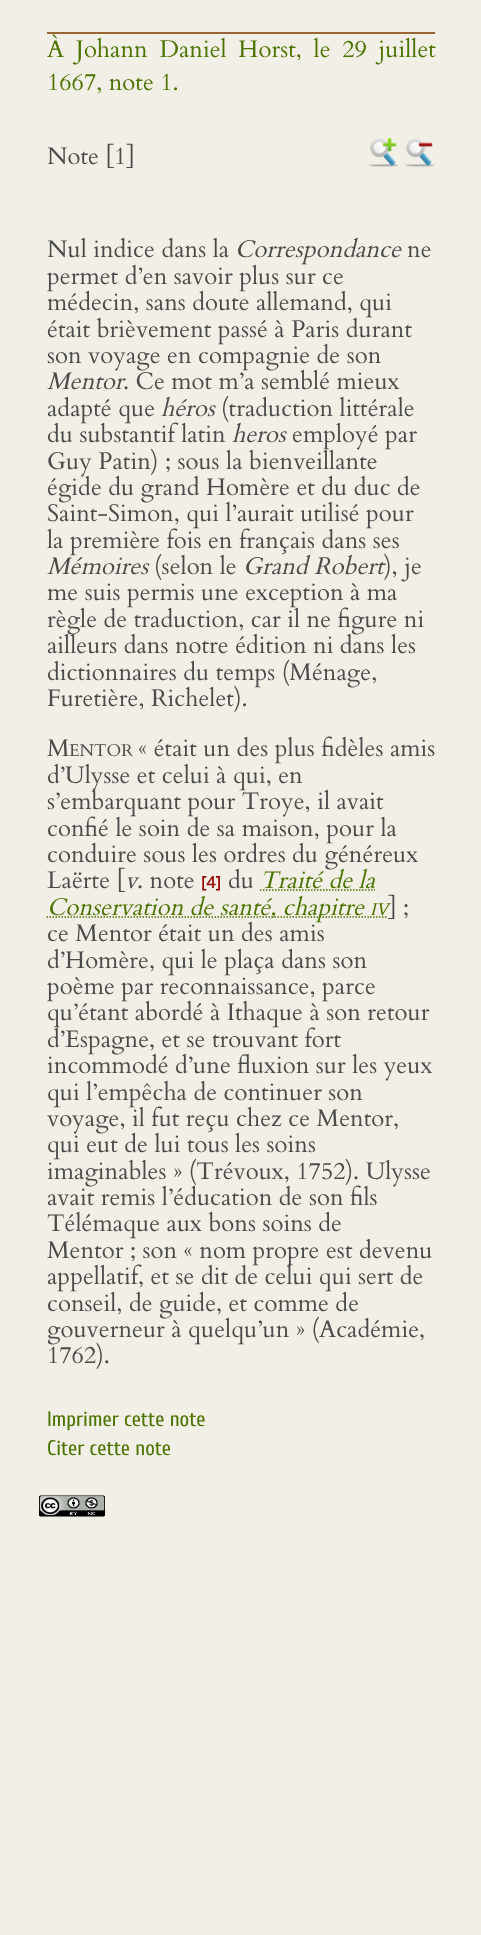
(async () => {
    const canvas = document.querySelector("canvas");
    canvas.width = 481;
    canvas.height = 1935;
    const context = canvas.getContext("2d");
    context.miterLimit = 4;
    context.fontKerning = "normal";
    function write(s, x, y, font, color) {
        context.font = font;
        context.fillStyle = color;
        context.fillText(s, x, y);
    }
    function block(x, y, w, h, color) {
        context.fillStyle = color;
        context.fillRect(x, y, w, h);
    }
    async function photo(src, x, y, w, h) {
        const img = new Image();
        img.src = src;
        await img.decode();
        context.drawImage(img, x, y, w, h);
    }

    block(0, 0, 481, 1935, "rgb(242, 239, 230)");
    block(47, 32, 388, 2, "rgb(153, 102, 51)");
    context.wordSpacing = "5.25px";
    write("À Johann Daniel Horst, le 29 juillet", 47, 57, "24px Cardo", "rgb(75, 115, 0)");
    context.wordSpacing = "0px";
    write("1667, note 1.", 47, 90, "24px Cardo", "rgb(75, 115, 0)");
    write("Note [1]", 47, 164, "24px Cardo", "rgb(75, 75, 75)");
    await photo("media/1.png", 369, 138, 30, 29);
    await photo("media/2.png", 405, 138, 30, 29);
    write("Nul indice dans la", 47, 257, "24px Cardo", "rgb(75, 75, 75)");
    write("Correspondance", 235, 257, "italic 24px Cardo", "rgb(75, 75, 75)");
    write("ne", 407, 257, "24px Cardo", "rgb(75, 75, 75)");
    write("permet d’en savoir plus sur ce", 47, 284, "24px Cardo", "rgb(75, 75, 75)");
    write("médecin, sans doute allemand, qui", 47, 310, "24px Cardo", "rgb(75, 75, 75)");
    write("était brièvement passé à Paris durant", 47, 337, "24px Cardo", "rgb(75, 75, 75)");
    write("son voyage en compagnie de son", 47, 363, "24px Cardo", "rgb(75, 75, 75)");
    write("Mentor", 47, 389, "italic 24px Cardo", "rgb(75, 75, 75)");
    write(". Ce mot m’a semblé mieux", 123, 389, "24px Cardo", "rgb(75, 75, 75)");
    write("adapté que", 47, 416, "24px Cardo", "rgb(75, 75, 75)");
    write("héros", 161, 416, "italic 24px Cardo", "rgb(75, 75, 75)");
    write("(traduction littérale", 221, 416, "24px Cardo", "rgb(75, 75, 75)");
    write("du substantif latin", 47, 442, "24px Cardo", "rgb(75, 75, 75)");
    write("heros", 232, 442, "italic 24px Cardo", "rgb(75, 75, 75)");
    write("employé par", 292, 442, "24px Cardo", "rgb(75, 75, 75)");
    write("Guy Patin) ; sous la bienveillante", 47, 469, "24px Cardo", "rgb(75, 75, 75)");
    write("égide du grand Homère et du duc de", 47, 495, "24px Cardo", "rgb(75, 75, 75)");
    write("Saint-Simon, qui l’aurait utilisé pour", 47, 521, "24px Cardo", "rgb(75, 75, 75)");
    write("la première fois en français dans ses", 47, 548, "24px Cardo", "rgb(75, 75, 75)");
    write("Mémoires", 47, 574, "italic 24px Cardo", "rgb(75, 75, 75)");
    write("(selon le", 154, 574, "24px Cardo", "rgb(75, 75, 75)");
    write("Grand Robert", 243, 574, "italic 24px Cardo", "rgb(75, 75, 75)");
    write("), je", 384, 574, "24px Cardo", "rgb(75, 75, 75)");
    write("me suis permis une exception à ma", 47, 600, "24px Cardo", "rgb(75, 75, 75)");
    write("règle de traduction, car il ne figure ni", 47, 627, "24px Cardo", "rgb(75, 75, 75)");
    write("ailleurs dans notre édition ni dans les", 47, 653, "24px Cardo", "rgb(75, 75, 75)");
    write("dictionnaires du temps (Ménage,", 47, 680, "24px Cardo", "rgb(75, 75, 75)");
    write("Furetière, Richelet).", 47, 706, "24px Cardo", "rgb(75, 75, 75)");
    write("M", 47, 756, "24px Cardo", "rgb(75, 75, 75)");
    write("ENTOR", 69, 756, "17px Cardo", "rgb(75, 75, 75)");
    write("« était un des plus fidèles amis", 138, 756, "24px Cardo", "rgb(75, 75, 75)");
    write("d’Ulysse et celui à qui, en", 47, 783, "24px Cardo", "rgb(75, 75, 75)");
    write("s’embarquant pour Troye, il avait", 47, 809, "24px Cardo", "rgb(75, 75, 75)");
    write("confié le soin de sa maison, pour la", 47, 836, "24px Cardo", "rgb(75, 75, 75)");
    write("conduire sous les ordres du généreux", 47, 862, "24px Cardo", "rgb(75, 75, 75)");
    write("Laërte [", 47, 888, "24px Cardo", "rgb(75, 75, 75)");
    write("v", 125, 888, "italic 24px Cardo", "rgb(75, 75, 75)");
    write(". note", 137, 888, "24px Cardo", "rgb(75, 75, 75)");
    write("[4]", 201, 888, "bold 16px Open Sans", "rgb(153, 0, 0)");
    write("du", 228, 888, "24px Cardo", "rgb(75, 75, 75)");
    write("Traité de la", 260, 888, "italic 24px Cardo", "rgb(75, 115, 0)");
    context.beginPath();
    context.moveTo(260, 890);
    context.lineTo(375, 890);
    context.strokeStyle = "rgb(75, 115, 0)";
    context.lineWidth = 1.5;
    context.setLineDash([1.5, 1.5]);
    context.stroke();
    context.beginPath();
    context.moveTo(46.5, 917);
    context.lineTo(370, 917);
    context.stroke();
    write("Conservation de santé, chapitre", 47, 915, "italic 24px Cardo", "rgb(75, 115, 0)");
    write("IV", 370, 915, "italic 17px Cardo", "rgb(75, 115, 0)");
    context.beginPath();
    context.moveTo(370, 917);
    context.lineTo(387.5, 917);
    context.stroke();
    write("] ;", 388, 915, "24px Cardo", "rgb(75, 75, 75)");
    write("ce Mentor était un des amis", 47, 941, "24px Cardo", "rgb(75, 75, 75)");
    write("d’Homère, qui le plaça dans son", 47, 968, "24px Cardo", "rgb(75, 75, 75)");
    write("poème par reconnaissance, parce", 47, 994, "24px Cardo", "rgb(75, 75, 75)");
    write("qu’étant abordé à Ithaque à son retour", 47, 1020, "24px Cardo", "rgb(75, 75, 75)");
    write("d’Espagne, et se trouvant fort", 47, 1047, "24px Cardo", "rgb(75, 75, 75)");
    write("incommodé d’une fluxion sur les yeux", 47, 1073, "24px Cardo", "rgb(75, 75, 75)");
    write("qui l’empêcha de continuer son", 47, 1100, "24px Cardo", "rgb(75, 75, 75)");
    write("voyage, il fut reçu chez ce Mentor,", 47, 1126, "24px Cardo", "rgb(75, 75, 75)");
    write("qui eut de lui tous les soins", 47, 1152, "24px Cardo", "rgb(75, 75, 75)");
    write("imaginables » (Trévoux, 1752). Ulysse", 47, 1179, "24px Cardo", "rgb(75, 75, 75)");
    write("avait remis l’éducation de son fils", 47, 1205, "24px Cardo", "rgb(75, 75, 75)");
    write("Télémaque aux bons soins de", 47, 1231, "24px Cardo", "rgb(75, 75, 75)");
    write("Mentor ; son « nom propre est devenu", 47, 1258, "24px Cardo", "rgb(75, 75, 75)");
    write("appellatif, et se dit de celui qui sert de", 47, 1284, "24px Cardo", "rgb(75, 75, 75)");
    write("conseil, de guide, et comme de", 47, 1311, "24px Cardo", "rgb(75, 75, 75)");
    write("gouverneur à quelqu’un » (Académie,", 47, 1337, "24px Cardo", "rgb(75, 75, 75)");
    write("1762).", 47, 1363, "24px Cardo", "rgb(75, 75, 75)");
    write("Imprimer cette note", 47, 1426, "21px Cuprum", "rgb(75, 115, 0)");
    write("Citer cette note", 47, 1455, "21px Cuprum", "rgb(75, 115, 0)");
    await photo("media/3.png", 39, 1495, 66, 22);
})();
